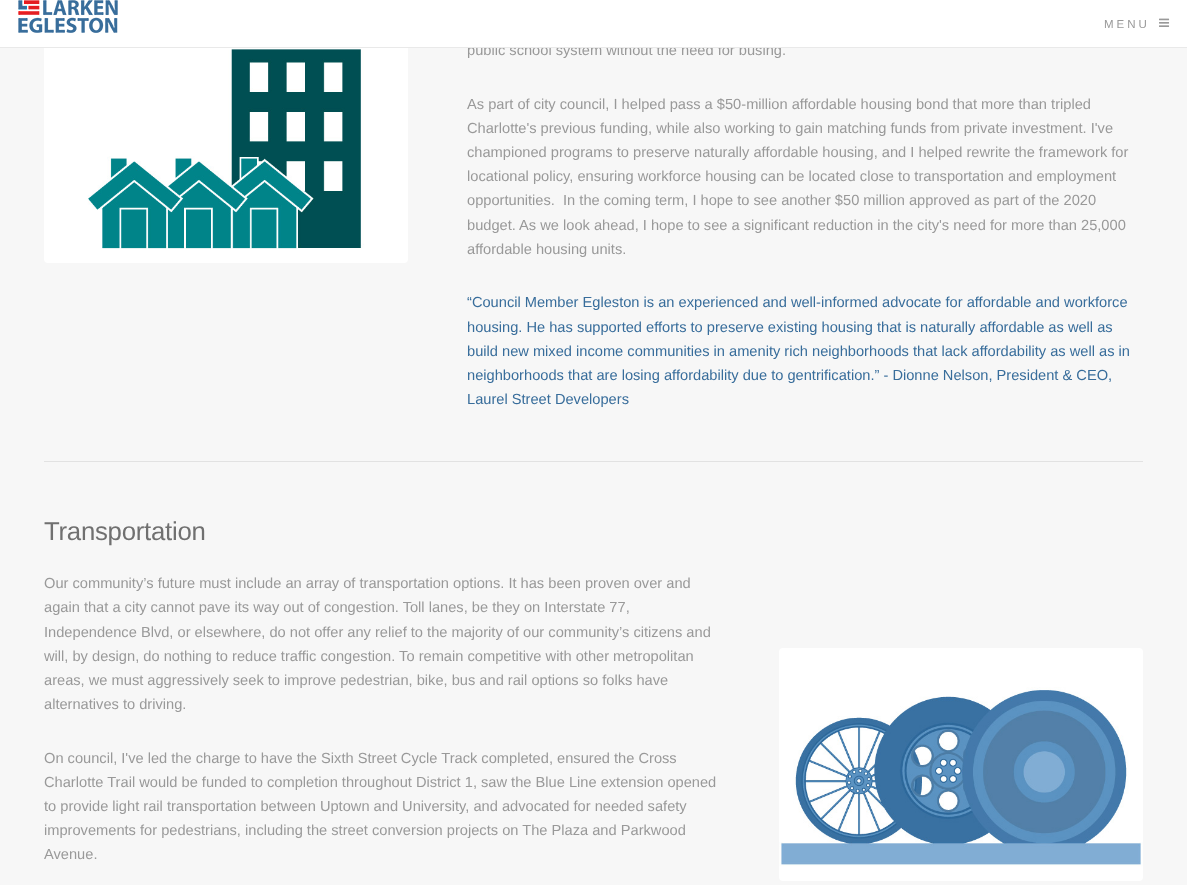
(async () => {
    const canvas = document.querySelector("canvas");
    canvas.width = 1187;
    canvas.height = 885;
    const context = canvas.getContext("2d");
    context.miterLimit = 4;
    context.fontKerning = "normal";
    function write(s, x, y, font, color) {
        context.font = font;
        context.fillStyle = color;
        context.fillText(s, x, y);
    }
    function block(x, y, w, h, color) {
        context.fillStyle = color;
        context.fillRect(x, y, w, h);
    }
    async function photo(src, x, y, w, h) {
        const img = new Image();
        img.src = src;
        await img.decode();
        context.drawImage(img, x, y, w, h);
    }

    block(0, 0, 1187, 885, "rgb(247, 247, 247)");
    write("public school system without the need for busing.", 467, 55, "14.65px Liberation Sans", "rgb(153, 153, 153)");
    block(0, 0, 1187, 47, "rgb(255, 255, 255)");
    block(0, 47, 1187, 1, "rgb(233, 233, 233)");
    await photo("media/1.png", 18, 0, 100, 33);
    context.letterSpacing = "3px";
    write("MENU", 1104, 28, "11.5px Liberation Sans", "rgb(153, 153, 153)");
    await photo("media/2.png", 1159, 18, 11, 9);
    await photo("media/3.png", 44, 48, 364, 215);
    context.letterSpacing = "0px";
    write("As part of city council, I helped pass a $50-million affordable housing bond that more than tripled", 467, 109, "14.65px Liberation Sans", "rgb(153, 153, 153)");
    write("Charlotte's previous funding, while also working to gain matching funds from private investment. I've", 467, 133, "14.65px Liberation Sans", "rgb(153, 153, 153)");
    write("championed programs to preserve naturally affordable housing, and I helped rewrite the framework for", 467, 157, "14.65px Liberation Sans", "rgb(153, 153, 153)");
    write("locational policy, ensuring workforce housing can be located close to transportation and employment", 467, 181, "14.65px Liberation Sans", "rgb(153, 153, 153)");
    write("opportunities.  In the coming term, I hope to see another $50 million approved as part of the 2020", 467, 205, "14.65px Liberation Sans", "rgb(153, 153, 153)");
    write("budget. As we look ahead, I hope to see a significant reduction in the city's need for more than 25,000", 467, 230, "14.65px Liberation Sans", "rgb(153, 153, 153)");
    write("affordable housing units.", 467, 254, "14.65px Liberation Sans", "rgb(153, 153, 153)");
    write("“Council Member Egleston is an experienced and well-informed advocate for affordable and workforce", 467, 307, "14.65px Liberation Sans", "rgb(56, 109, 155)");
    write("housing. He has supported efforts to preserve existing housing that is naturally affordable as well as", 467, 332, "14.65px Liberation Sans", "rgb(56, 109, 155)");
    write("build new mixed income communities in amenity rich neighborhoods that lack affordability as well as in", 467, 356, "14.65px Liberation Sans", "rgb(56, 109, 155)");
    write("neighborhoods that are losing affordability due to gentrification.” - Dionne Nelson, President & CEO,", 467, 380, "14.65px Liberation Sans", "rgb(56, 109, 155)");
    write("Laurel Street Developers", 467, 404, "14.65px Liberation Sans", "rgb(56, 109, 155)");
    block(44, 461, 1099, 1, "rgb(226, 226, 226)");
    context.letterSpacing = "-0.25px";
    write("Transportation", 44, 540, "25.75px Liberation Sans", "rgb(112, 112, 112)");
    context.letterSpacing = "0px";
    write("Our community’s future must include an array of transportation options. It has been proven over and", 44, 588, "14.65px Liberation Sans", "rgb(153, 153, 153)");
    write("again that a city cannot pave its way out of congestion. Toll lanes, be they on Interstate 77,", 44, 612, "14.65px Liberation Sans", "rgb(153, 153, 153)");
    write("Independence Blvd, or elsewhere, do not offer any relief to the majority of our community’s citizens and", 44, 637, "14.65px Liberation Sans", "rgb(153, 153, 153)");
    write("will, by design, do nothing to reduce traffic congestion. To remain competitive with other metropolitan", 44, 661, "14.65px Liberation Sans", "rgb(153, 153, 153)");
    write("areas, we must aggressively seek to improve pedestrian, bike, bus and rail options so folks have", 44, 685, "14.65px Liberation Sans", "rgb(153, 153, 153)");
    write("alternatives to driving.", 44, 709, "14.65px Liberation Sans", "rgb(153, 153, 153)");
    write("On council, I've led the charge to have the Sixth Street Cycle Track completed, ensured the Cross", 44, 763, "14.65px Liberation Sans", "rgb(153, 153, 153)");
    write("Charlotte Trail would be funded to completion throughout District 1, saw the Blue Line extension opened", 44, 787, "14.65px Liberation Sans", "rgb(153, 153, 153)");
    write("to provide light rail transportation between Uptown and University, and advocated for needed safety", 44, 811, "14.65px Liberation Sans", "rgb(153, 153, 153)");
    write("improvements for pedestrians, including the street conversion projects on The Plaza and Parkwood", 44, 835, "14.65px Liberation Sans", "rgb(153, 153, 153)");
    write("Avenue.", 44, 859, "14.65px Liberation Sans", "rgb(153, 153, 153)");
    await photo("media/4.png", 779, 648, 364, 233);
})();
